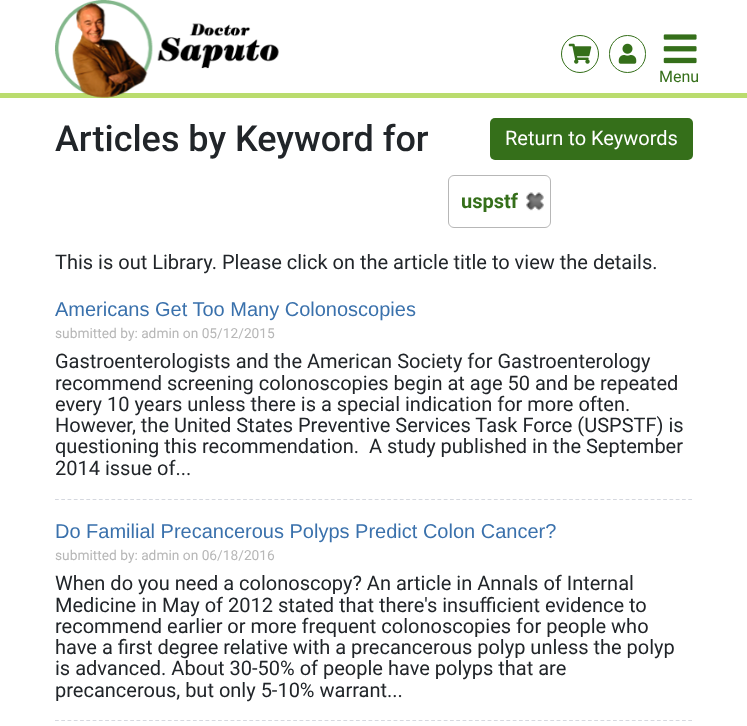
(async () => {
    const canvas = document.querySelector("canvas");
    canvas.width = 747;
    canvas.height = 726;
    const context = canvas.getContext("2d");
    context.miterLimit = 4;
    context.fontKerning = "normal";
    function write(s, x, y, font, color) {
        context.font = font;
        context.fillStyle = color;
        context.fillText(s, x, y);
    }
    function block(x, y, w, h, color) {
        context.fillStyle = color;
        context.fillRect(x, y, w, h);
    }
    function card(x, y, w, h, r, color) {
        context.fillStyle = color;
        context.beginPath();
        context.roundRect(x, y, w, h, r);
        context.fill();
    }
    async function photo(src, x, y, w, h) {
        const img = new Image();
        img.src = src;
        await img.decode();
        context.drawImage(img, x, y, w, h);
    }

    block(0, 0, 747, 726, "rgb(255, 255, 255)");
    block(0, 93, 747, 5, "rgb(186, 220, 110)");
    await photo("media/1.png", 55, 0, 224, 98);
    context.beginPath();
    context.arc(580, 54, 18.5, 0, Math.PI * 2);
    context.strokeStyle = "rgb(53, 111, 26)";
    context.stroke();
    await photo("media/2.png", 568, 43, 24, 21);
    context.beginPath();
    context.roundRect(609.5, 35.5, 36, 37, 18);
    context.stroke();
    await photo("media/3.png", 618, 43, 19, 21);
    await photo("media/4.png", 663, 34, 34, 30);
    write("Menu", 659, 82, "16px Roboto", "rgb(53, 111, 26)");
    write("Articles by Keyword for", 55, 151, "500 36px Roboto", "rgb(33, 37, 41)");
    card(490, 118, 203, 42, 5, "rgb(53, 111, 26)");
    write("Return to Keywords", 505, 145, "20px Roboto", "rgb(255, 255, 255)");
    await photo("media/5.png", 526, 192, 18, 19);
    context.beginPath();
    context.roundRect(448.5, 175.5, 102, 52, 5.5);
    context.strokeStyle = "rgb(183, 183, 183)";
    context.stroke();
    write("uspstf", 461, 208, "bold 20px Roboto", "rgb(53, 111, 26)");
    write("This is out Library. Please click on the article title to view the details.", 55, 269, "20px Roboto", "rgb(33, 37, 41)");
    write("Americans Get Too Many Colonoscopies", 55, 316, "20px Liberation Sans", "rgb(58, 113, 172)");
    write("submitted by: admin on 05/12/2015", 55, 338, "13.75px Roboto", "rgb(183, 183, 183)");
    write("Gastroenterologists and the American Society for Gastroenterology", 55, 368, "20px Roboto", "rgb(33, 37, 41)");
    write("recommend screening colonoscopies begin at age 50 and be repeated", 55, 390, "20px Roboto", "rgb(33, 37, 41)");
    write("every 10 years unless there is a special indication for more often.", 55, 411, "20px Roboto", "rgb(33, 37, 41)");
    write("However, the United States Preventive Services Task Force (USPSTF) is", 55, 432, "20px Roboto", "rgb(33, 37, 41)");
    write("questioning this recommendation.", 55, 453, "20px Roboto", "rgb(33, 37, 41)");
    write("A study published in the September", 369, 453, "20px Roboto", "rgb(33, 37, 41)");
    write("2014 issue of...", 55, 475, "20px Roboto", "rgb(33, 37, 41)");
    context.beginPath();
    context.moveTo(55, 499.5);
    context.lineTo(692.5, 499.5);
    context.strokeStyle = "rgb(213, 216, 223)";
    context.lineWidth = 1.2;
    context.setLineDash([3.75, 2.52]);
    context.stroke();
    write("Do Familial Precancerous Polyps Predict Colon Cancer?", 55, 538, "20px Liberation Sans", "rgb(58, 113, 172)");
    write("submitted by: admin on 06/18/2016", 55, 560, "13.75px Roboto", "rgb(183, 183, 183)");
    write("When do you need a colonoscopy? An article in Annals of Internal", 55, 590, "20px Roboto", "rgb(33, 37, 41)");
    write("Medicine in May of 2012 stated that there's insufficient evidence to", 55, 612, "20px Roboto", "rgb(33, 37, 41)");
    write("recommend earlier or more frequent colonoscopies for people who", 55, 633, "20px Roboto", "rgb(33, 37, 41)");
    write("have a first degree relative with a precancerous polyp unless the polyp", 55, 654, "20px Roboto", "rgb(33, 37, 41)");
    write("is advanced. About 30-50% of people have polyps that are", 55, 675, "20px Roboto", "rgb(33, 37, 41)");
    write("precancerous, but only 5-10% warrant...", 55, 697, "20px Roboto", "rgb(33, 37, 41)");
    context.beginPath();
    context.moveTo(55, 720.5);
    context.lineTo(692.5, 720.5);
    context.stroke();
})();
